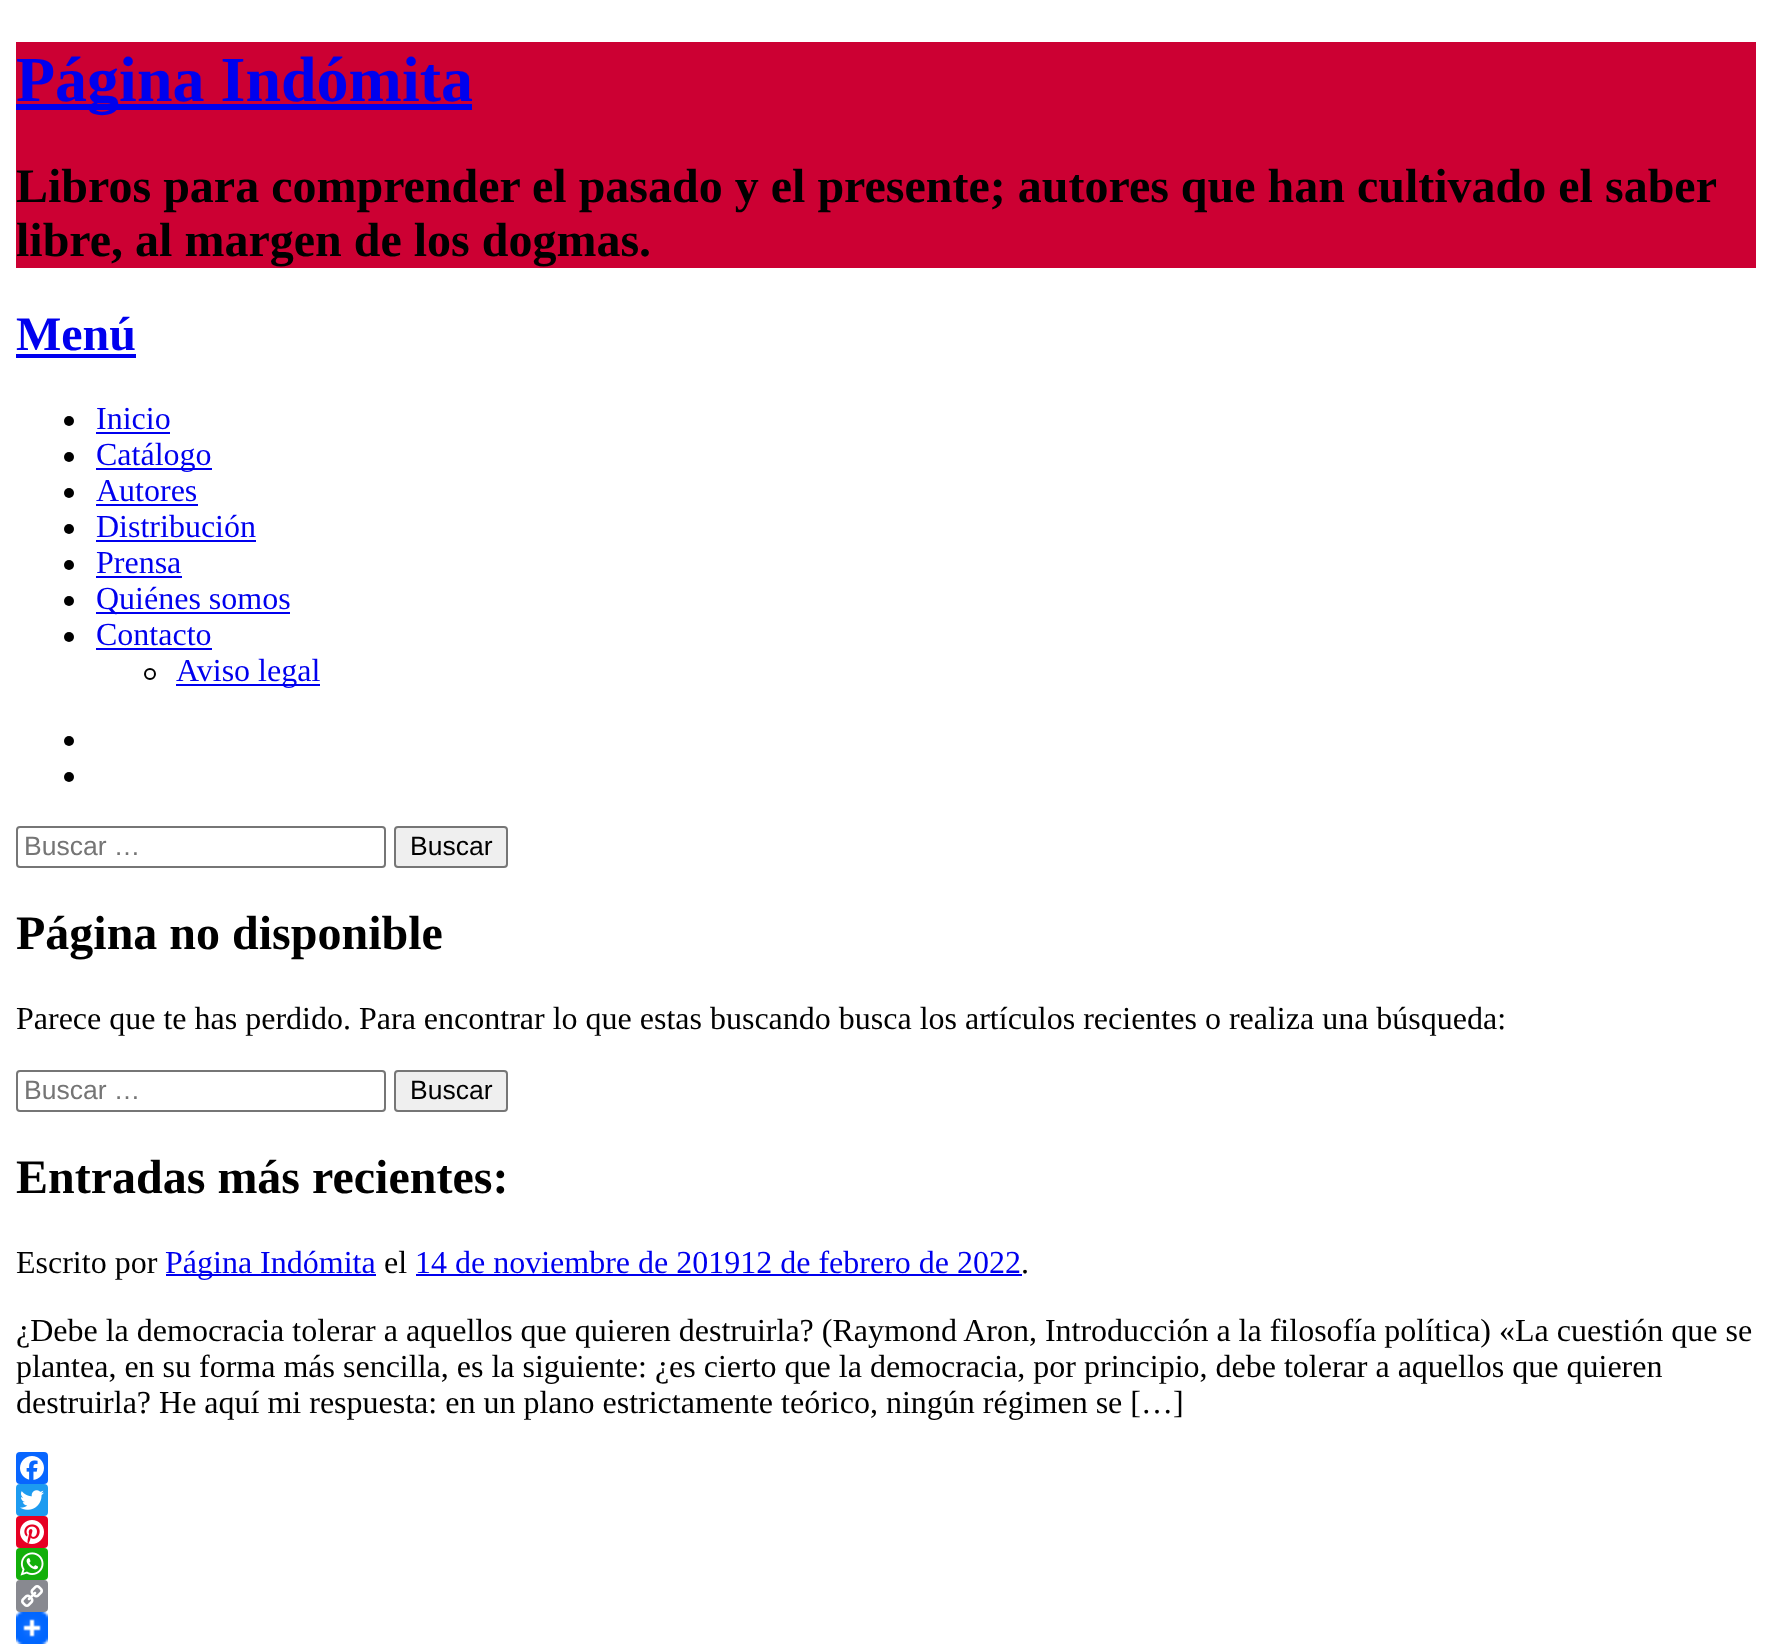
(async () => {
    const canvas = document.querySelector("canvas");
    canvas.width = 1772;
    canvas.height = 1646;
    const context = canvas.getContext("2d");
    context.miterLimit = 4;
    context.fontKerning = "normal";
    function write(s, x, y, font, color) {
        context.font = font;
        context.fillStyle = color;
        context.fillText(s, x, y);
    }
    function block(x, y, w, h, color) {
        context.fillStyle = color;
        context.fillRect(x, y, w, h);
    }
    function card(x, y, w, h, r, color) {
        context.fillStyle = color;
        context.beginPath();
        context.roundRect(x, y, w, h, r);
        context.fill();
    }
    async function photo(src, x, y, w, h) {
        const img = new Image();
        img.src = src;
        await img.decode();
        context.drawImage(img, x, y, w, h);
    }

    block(0, 0, 1772, 1646, "rgb(255, 255, 255)");
    block(16, 42, 1740, 226, "rgb(204, 0, 51)");
    block(16, 104, 456, 6, "rgb(0, 0, 238)");
    write("Página Indómita", 16, 101, "bold 64px Liberation Serif", "rgb(0, 0, 238)");
    write("Libros para comprender el pasado y el presente; autores que han cultivado el saber", 16, 202, "bold 48px Liberation Serif", "rgb(0, 0, 0)");
    write("libre, al margen de los dogmas.", 16, 256, "bold 48px Liberation Serif", "rgb(0, 0, 0)");
    write("Menú", 16, 350, "bold 48px Liberation Serif", "rgb(0, 0, 238)");
    block(16, 354, 120, 4, "rgb(0, 0, 238)");
    context.fillStyle = "rgb(0, 0, 0)";
    context.beginPath();
    context.arc(69, 421, 5, 0, Math.PI * 2);
    context.fill();
    write("Inicio", 96, 429, "32px Liberation Serif", "rgb(0, 0, 238)");
    block(96, 432, 74, 2, "rgb(0, 0, 238)");
    context.fillStyle = "rgb(0, 0, 0)";
    context.beginPath();
    context.arc(69, 457, 5, 0, Math.PI * 2);
    context.fill();
    block(96, 468, 116, 2, "rgb(0, 0, 238)");
    write("Catálogo", 96, 465, "32px Liberation Serif", "rgb(0, 0, 238)");
    context.fillStyle = "rgb(0, 0, 0)";
    context.beginPath();
    context.arc(69, 493, 5, 0, Math.PI * 2);
    context.fill();
    write("Autores", 96, 501, "32px Liberation Serif", "rgb(0, 0, 238)");
    block(96, 504, 102, 2, "rgb(0, 0, 238)");
    context.fillStyle = "rgb(0, 0, 0)";
    context.beginPath();
    context.arc(69, 529, 5, 0, Math.PI * 2);
    context.fill();
    write("Distribución", 96, 537, "32px Liberation Serif", "rgb(0, 0, 238)");
    block(96, 540, 160, 2, "rgb(0, 0, 238)");
    context.fillStyle = "rgb(0, 0, 0)";
    context.beginPath();
    context.arc(69, 565, 5, 0, Math.PI * 2);
    context.fill();
    write("Prensa", 96, 573, "32px Liberation Serif", "rgb(0, 0, 238)");
    block(96, 576, 86, 2, "rgb(0, 0, 238)");
    context.fillStyle = "rgb(0, 0, 0)";
    context.beginPath();
    context.arc(69, 601, 5, 0, Math.PI * 2);
    context.fill();
    block(96, 612, 194, 2, "rgb(0, 0, 238)");
    write("Quiénes somos", 96, 609, "32px Liberation Serif", "rgb(0, 0, 238)");
    context.fillStyle = "rgb(0, 0, 0)";
    context.beginPath();
    context.arc(69, 637, 5, 0, Math.PI * 2);
    context.fill();
    write("Contacto", 96, 645, "32px Liberation Serif", "rgb(0, 0, 238)");
    block(96, 648, 116, 2, "rgb(0, 0, 238)");
    context.beginPath();
    context.arc(150, 674, 5, 0, Math.PI * 2);
    context.strokeStyle = "rgb(0, 0, 0)";
    context.lineWidth = 2;
    context.stroke();
    block(176, 684, 144, 2, "rgb(0, 0, 238)");
    write("Aviso legal", 176, 681, "32px Liberation Serif", "rgb(0, 0, 238)");
    context.fillStyle = "rgb(0, 0, 0)";
    context.beginPath();
    context.arc(69, 741, 5, 0, Math.PI * 2);
    context.fill();
    context.beginPath();
    context.arc(69, 777, 5, 0, Math.PI * 2);
    context.fill();
    context.beginPath();
    context.roundRect(17, 827, 368, 40, 3);
    context.strokeStyle = "rgb(118, 118, 118)";
    context.stroke();
    write("Buscar …", 24, 855, "26.5px Liberation Sans", "rgb(117, 117, 117)");
    context.fillStyle = "rgb(239, 239, 239)";
    context.beginPath();
    context.roundRect(395, 827, 112, 40, 3);
    context.fill();
    context.stroke();
    write("Buscar", 410, 855, "26.5px Liberation Sans", "rgb(0, 0, 0)");
    write("Página no disponible", 16, 949, "bold 48px Liberation Serif", "rgb(0, 0, 0)");
    write("Parece que te has perdido. Para encontrar lo que estas buscando busca los artículos recientes o realiza una búsqueda:", 16, 1029, "32px Liberation Serif", "rgb(0, 0, 0)");
    context.beginPath();
    context.roundRect(17, 1071, 368, 40, 3);
    context.stroke();
    write("Buscar …", 24, 1099, "26.5px Liberation Sans", "rgb(117, 117, 117)");
    context.fillStyle = "rgb(239, 239, 239)";
    context.beginPath();
    context.roundRect(395, 1071, 112, 40, 3);
    context.fill();
    context.stroke();
    write("Buscar", 410, 1099, "26.5px Liberation Sans", "rgb(0, 0, 0)");
    write("Entradas más recientes:", 16, 1193, "bold 48px Liberation Serif", "rgb(0, 0, 0)");
    write("Escrito por", 16, 1273, "32px Liberation Serif", "rgb(0, 0, 0)");
    block(166, 1274, 210, 2, "rgb(0, 0, 238)");
    write("Página Indómita", 165, 1273, "32px Liberation Serif", "rgb(0, 0, 238)");
    write("el", 384, 1273, "32px Liberation Serif", "rgb(0, 0, 0)");
    write("14 de noviembre de 201912 de febrero de 2022", 415, 1273, "32px Liberation Serif", "rgb(0, 0, 238)");
    block(416, 1274, 606, 2, "rgb(0, 0, 238)");
    write(".", 1021, 1273, "32px Liberation Serif", "rgb(0, 0, 0)");
    write("¿Debe la democracia tolerar a aquellos que quieren destruirla? (Raymond Aron, Introducción a la filosofía política) «La cuestión que se", 16, 1341, "32px Liberation Serif", "rgb(0, 0, 0)");
    write("plantea, en su forma más sencilla, es la siguiente: ¿es cierto que la democracia, por principio, debe tolerar a aquellos que quieren", 16, 1377, "32px Liberation Serif", "rgb(0, 0, 0)");
    write("destruirla? He aquí mi respuesta: en un plano estrictamente teórico, ningún régimen se […]", 16, 1413, "32px Liberation Serif", "rgb(0, 0, 0)");
    card(16, 1452, 32, 32, 4, "rgb(8, 102, 255)");
    await photo("media/1.png", 20, 1456, 24, 24);
    card(16, 1484, 32, 32, 4, "rgb(29, 155, 240)");
    await photo("media/2.png", 20, 1490, 24, 20);
    card(16, 1516, 32, 32, 4, "rgb(230, 0, 35)");
    await photo("media/3.png", 20, 1520, 24, 24);
    card(16, 1548, 32, 32, 4, "rgb(18, 175, 10)");
    await photo("media/4.png", 20, 1552, 24, 24);
    card(16, 1580, 32, 32, 4, "rgb(136, 137, 144)");
    await photo("media/5.png", 21, 1585, 22, 22);
    await photo("media/6.png", 16, 1612, 32, 32);
})();
